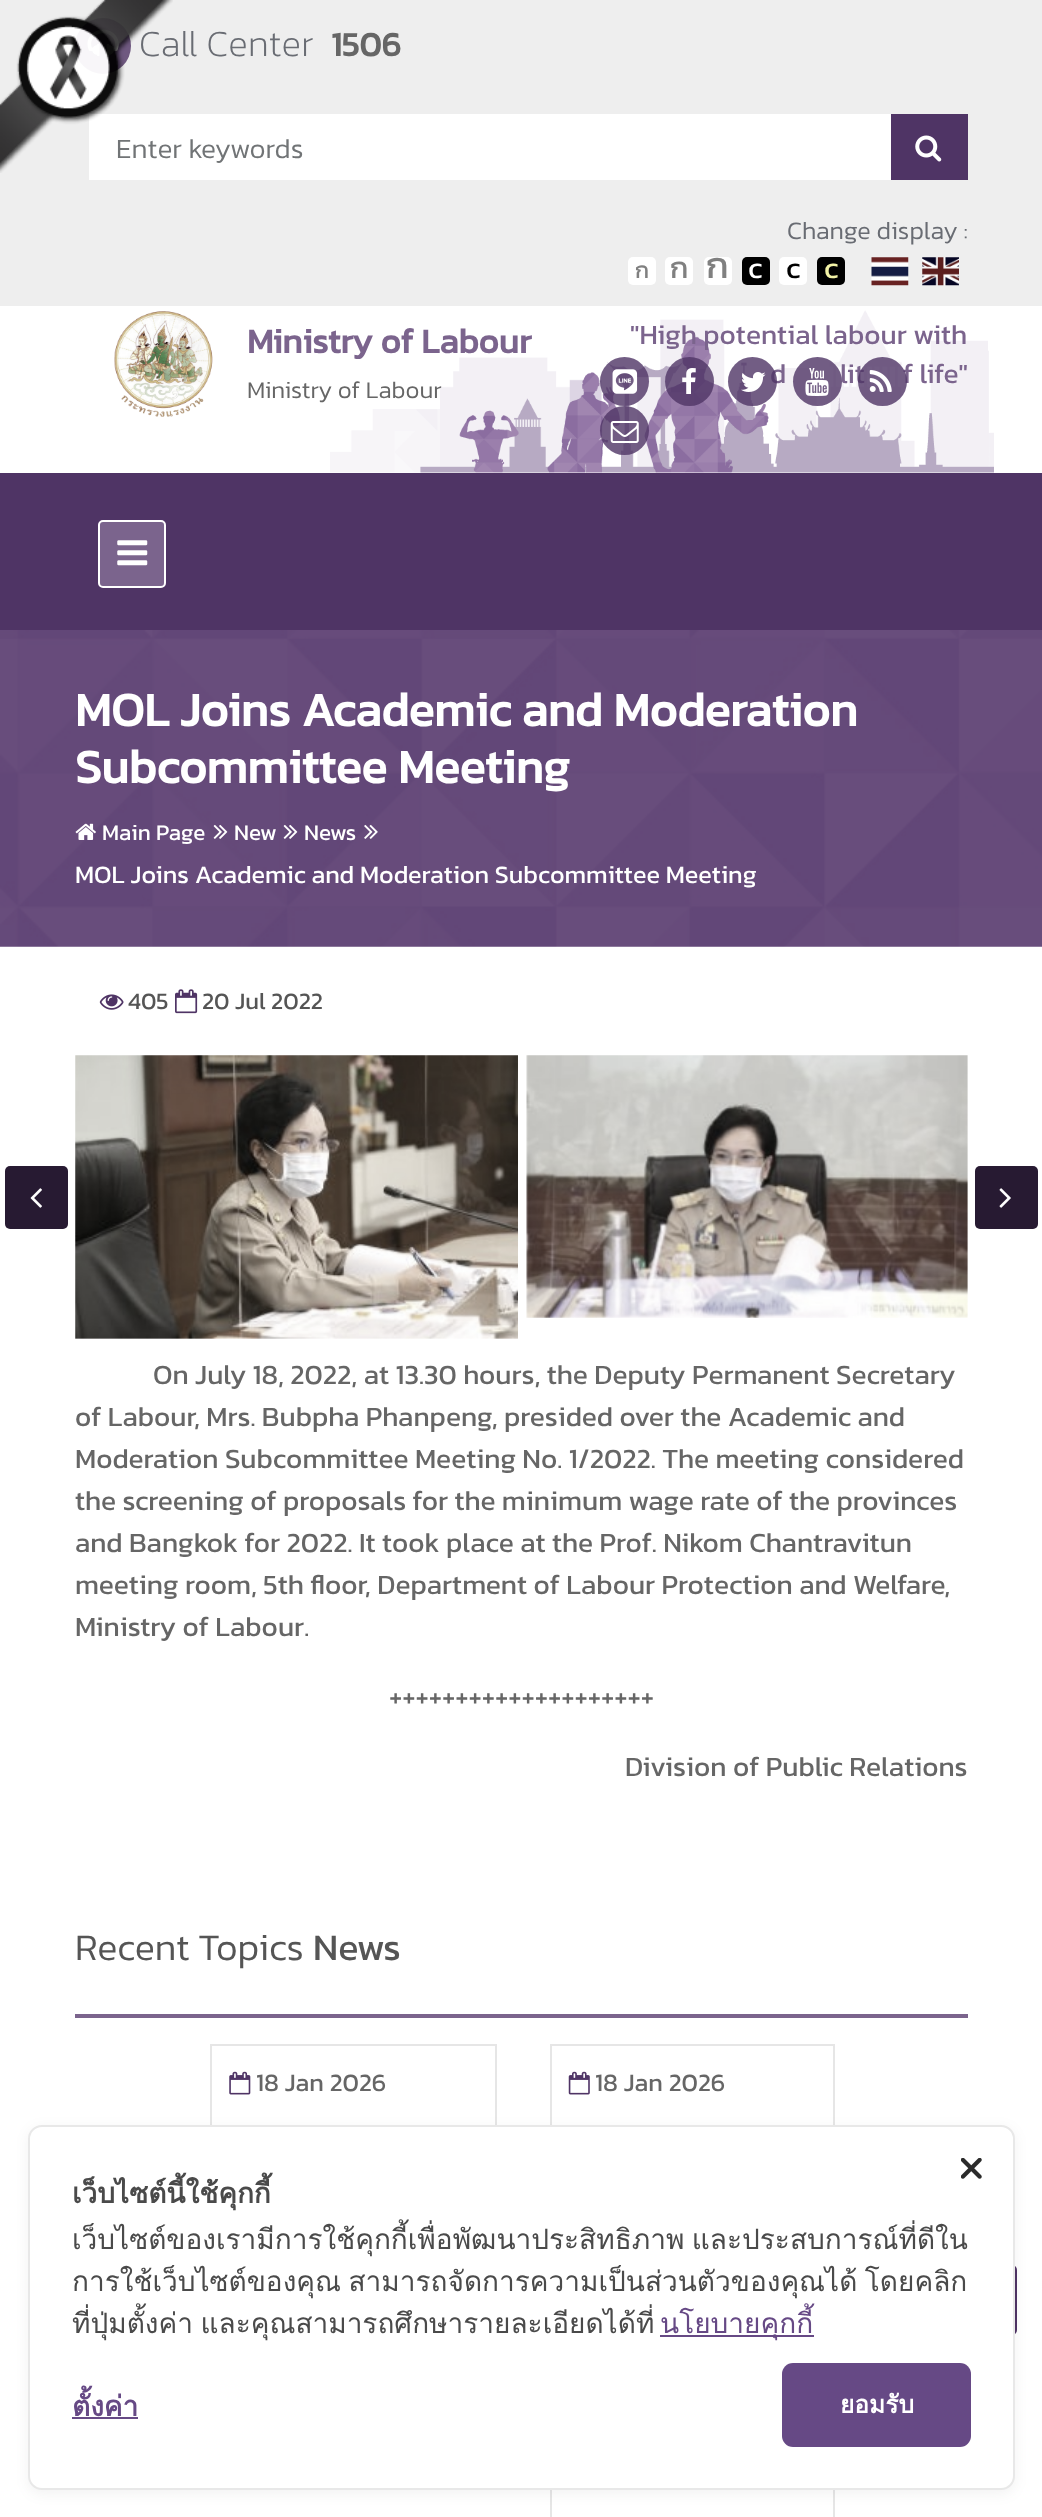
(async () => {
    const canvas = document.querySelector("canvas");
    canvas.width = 1042;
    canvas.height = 2517;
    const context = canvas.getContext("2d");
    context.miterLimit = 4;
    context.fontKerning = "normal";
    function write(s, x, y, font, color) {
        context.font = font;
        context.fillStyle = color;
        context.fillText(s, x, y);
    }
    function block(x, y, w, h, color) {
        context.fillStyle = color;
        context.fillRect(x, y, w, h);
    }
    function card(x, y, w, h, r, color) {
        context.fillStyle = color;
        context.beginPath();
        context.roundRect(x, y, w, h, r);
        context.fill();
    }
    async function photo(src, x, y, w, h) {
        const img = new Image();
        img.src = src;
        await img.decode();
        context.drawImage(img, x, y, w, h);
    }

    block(0, 0, 1042, 2517, "rgb(255, 255, 255)");
    block(0, 0, 1042, 306, "rgb(238, 238, 238)");
    context.fillStyle = "rgb(111, 89, 128)";
    context.beginPath();
    context.arc(103, 46, 28, 0, Math.PI * 2);
    context.fill();
    await photo("media/1.png", 87, 29, 32, 27);
    write("Call Center", 139, 56, "200 37px Kanit", "rgb(105, 108, 115)");
    write("1506", 331, 56, "bold 34px Kanit", "rgb(102, 102, 102)");
    block(89, 114, 802, 66, "rgb(255, 255, 255)");
    write("Enter keywords", 116, 158, "300 28px Kanit", "rgb(113, 116, 118)");
    block(891, 114, 77, 66, "rgb(79, 52, 101)");
    await photo("media/2.png", 915, 135, 27, 27);
    write("Change display :", 787, 239, "300 25.2px Kanit", "rgb(105, 108, 115)");
    card(628, 257, 28, 28, 5, "rgb(255, 255, 255)");
    write("ก", 635, 278, "23px Kanit", "rgb(128, 128, 128)");
    card(665, 257, 28, 28, 5, "rgb(255, 255, 255)");
    write("ก", 670, 278, "30px Kanit", "rgb(128, 128, 128)");
    card(704, 257, 28, 28, 5, "rgb(255, 255, 255)");
    write("ก", 706, 278, "37px Kanit", "rgb(128, 128, 128)");
    card(742, 257, 28, 28, 5, "rgb(0, 0, 0)");
    write("c", 748, 278, "30px Kanit", "rgb(255, 255, 255)");
    card(779, 257, 28, 28, 5, "rgb(255, 255, 255)");
    write("c", 786, 278, "30px Kanit", "rgb(0, 0, 0)");
    card(817, 257, 28, 28, 5, "rgb(0, 0, 0)");
    write("c", 824, 278, "30px Kanit", "rgb(242, 242, 166)");
    await photo("media/3.png", 871, 257, 38, 29);
    await photo("media/4.png", 922, 257, 37, 29);
    await photo("media/5.png", 0, 0, 173, 173);
    await photo("media/6.png", 330, 310, 664, 163);
    await photo("media/7.png", 114, 311, 99, 106);
    write("Ministry of Labour", 247, 353, "bold 34.75px Kanit", "rgb(123, 100, 141)");
    write("Ministry of Labour", 247, 398, "300 24.25px Kanit", "rgb(102, 102, 102)");
    write("\"High potential labour with", 630, 344, "28px Kanit", "rgb(123, 100, 141)");
    write("d", 770, 383, "28px Kanit", "rgb(123, 100, 141)");
    write("lit", 840, 383, "28px Kanit", "rgb(123, 100, 141)");
    write("f life\"", 903, 383, "28px Kanit", "rgb(123, 100, 141)");
    context.fillStyle = "rgba(79, 52, 101, 0.8)";
    context.beginPath();
    context.arc(624.5, 381.5, 24.5, 0, Math.PI * 2);
    context.fill();
    await photo("media/8.png", 612, 369, 26, 25);
    context.beginPath();
    context.arc(689.5, 381.5, 24.5, 0, Math.PI * 2);
    context.fill();
    await photo("media/9.png", 682, 368, 14, 26);
    context.beginPath();
    context.arc(752.5, 381.5, 24.5, 0, Math.PI * 2);
    context.fill();
    await photo("media/10.png", 741, 372, 25, 20);
    context.beginPath();
    context.arc(817.5, 381.5, 24.5, 0, Math.PI * 2);
    context.fill();
    await photo("media/11.png", 805, 368, 24, 28);
    context.beginPath();
    context.arc(882.5, 381.5, 24.5, 0, Math.PI * 2);
    context.fill();
    await photo("media/12.png", 869, 370, 23, 22);
    context.beginPath();
    context.arc(624.5, 430.5, 24.5, 0, Math.PI * 2);
    context.fill();
    await photo("media/13.png", 610, 421, 29, 22);
    block(0, 473, 1042, 157, "rgb(79, 52, 101)");
    context.fillStyle = "rgb(123, 100, 141)";
    context.beginPath();
    context.roundRect(99, 521, 66, 66, 4);
    context.fill();
    context.strokeStyle = "rgb(255, 255, 255)";
    context.lineWidth = 2;
    context.stroke();
    await photo("media/14.png", 117, 540, 31, 26);
    await photo("media/15.png", 0, 630, 1042, 317);
    write("MOL Joins Academic and Moderation", 75, 726, "bold 47.6px Kanit", "rgb(255, 255, 255)");
    write("Subcommittee Meeting", 75, 783, "bold 47.6px Kanit", "rgb(255, 255, 255)");
    await photo("media/16.png", 75, 823, 21, 17);
    write("Main Page", 102, 840, "22.5px Kanit", "rgb(255, 255, 255)");
    await photo("media/17.png", 213, 824, 15, 15);
    write("New", 234, 840, "22.5px Kanit", "rgb(255, 255, 255)");
    await photo("media/18.png", 283, 824, 15, 15);
    write("News", 304, 840, "22.5px Kanit", "rgb(255, 255, 255)");
    await photo("media/19.png", 364, 824, 14, 15);
    write("MOL Joins Academic and Moderation Subcommittee Meeting", 75, 883, "25.2px Kanit", "rgb(255, 255, 255)");
    await photo("media/20.png", 99, 994, 25, 16);
    write("405", 128, 1009, "23.75px Kanit", "rgb(85, 85, 85)");
    await photo("media/21.png", 175, 989, 23, 25);
    write("20 Jul 2022", 202, 1009, "23.75px Kanit", "rgb(85, 85, 85)");
    await photo("media/22.png", 75, 1055, 443, 284);
    await photo("media/23.png", 526, 1055, 442, 263);
    card(5, 1166, 63, 63, 5, "rgb(39, 26, 50)");
    await photo("media/24.png", 30, 1188, 12, 20);
    card(975, 1166, 63, 63, 5, "rgb(39, 26, 50)");
    await photo("media/25.png", 999, 1188, 12, 20);
    write("On July 18, 2022, at 13.30 hours, the Deputy Permanent Secretary", 153, 1384, "28px Kanit", "rgb(102, 102, 102)");
    write("of Labour, Mrs. Bubpha Phanpeng, presided over the Academic and", 75, 1426, "28px Kanit", "rgb(102, 102, 102)");
    write("Moderation Subcommittee Meeting No. 1/2022. The meeting considered", 75, 1468, "28px Kanit", "rgb(102, 102, 102)");
    write("the screening of proposals for the minimum wage rate of the provinces", 75, 1510, "28px Kanit", "rgb(102, 102, 102)");
    write("and Bangkok for 2022. It took place at the Prof. Nikom Chantravitun", 75, 1552, "28px Kanit", "rgb(102, 102, 102)");
    write("meeting room, 5th floor, Department of Labour Protection and Welfare,", 75, 1594, "28px Kanit", "rgb(102, 102, 102)");
    write("Ministry of Labour.", 75, 1636, "28px Kanit", "rgb(102, 102, 102)");
    write("++++++++++++++++++++", 389, 1706, "28px Kanit", "rgb(102, 102, 102)");
    write("Division of Public Relations", 625, 1776, "28px Kanit", "rgb(102, 102, 102)");
    write("Recent Topics", 75, 1960, "300 37.75px Kanit", "rgb(85, 85, 85)");
    write("News", 313, 1960, "37.75px Kanit", "rgb(85, 85, 85)");
    block(75, 2014, 893, 4, "rgb(123, 100, 141)");
    context.strokeStyle = "rgb(230, 230, 230)";
    context.strokeRect(211, 2045, 285, 385);
    await photo("media/26.png", 229, 2071, 22, 24);
    write("18 Jan 2026", 256, 2091, "25.2px Kanit", "rgb(102, 102, 102)");
    context.strokeRect(551, 2045, 283, 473);
    await photo("media/27.png", 568, 2071, 22, 24);
    write("18 Jan 2026", 595, 2091, "25.2px Kanit", "rgb(102, 102, 102)");
    card(947, 2265, 70, 70, 5, "rgb(79, 52, 101)");
    context.fillStyle = "rgba(0, 0, 0, 0.05)";
    context.filter = "blur(7px)";
    context.beginPath();
    context.roundRect(28, 2128, 987, 366, 14);
    context.fill();
    context.filter = "none";
    context.fillStyle = "rgb(255, 255, 255)";
    context.beginPath();
    context.roundRect(29, 2126, 985, 363, 13);
    context.fill();
    context.strokeStyle = "rgb(232, 232, 232)";
    context.stroke();
    await photo("media/28.png", 961, 2158, 21, 21);
    write("เว็บไซต์นี้ใช้คุกกี้", 72, 2203, "bold 28px Loma", "rgb(74, 74, 74)");
    context.wordSpacing = "-2px";
    write("เว็บไซต์ของเรามีการใช้คุกกี้เพื่อพัฒนาประสิทธิภาพ และประสบการณ์ที่ดีใน", 72, 2249, "28px Loma", "rgb(74, 74, 74)");
    write("การใช้เว็บไซต์ของคุณ สามารถจัดการความเป็นส่วนตัวของคุณได้ โดยคลิก", 72, 2291, "28px Loma", "rgb(74, 74, 74)");
    write("ที่ปุ่มตั้งค่า และคุณสามารถศึกษารายละเอียดได้ที่", 72, 2333, "28px Loma", "rgb(74, 74, 74)");
    block(660, 2335, 154, 2, "rgb(102, 73, 133)");
    context.wordSpacing = "0px";
    write("นโยบายคุกกี้", 660, 2333, "28px Loma", "rgb(102, 73, 133)");
    write("ตั้งค่า", 72, 2416, "bold 28px Loma", "rgb(102, 73, 133)");
    block(72, 2417, 66, 2, "rgb(102, 73, 133)");
    card(782, 2363, 189, 84, 11, "rgb(102, 73, 133)");
    write("ยอมรับ", 840, 2413, "bold 24.5px Loma", "rgb(255, 255, 255)");
})();
